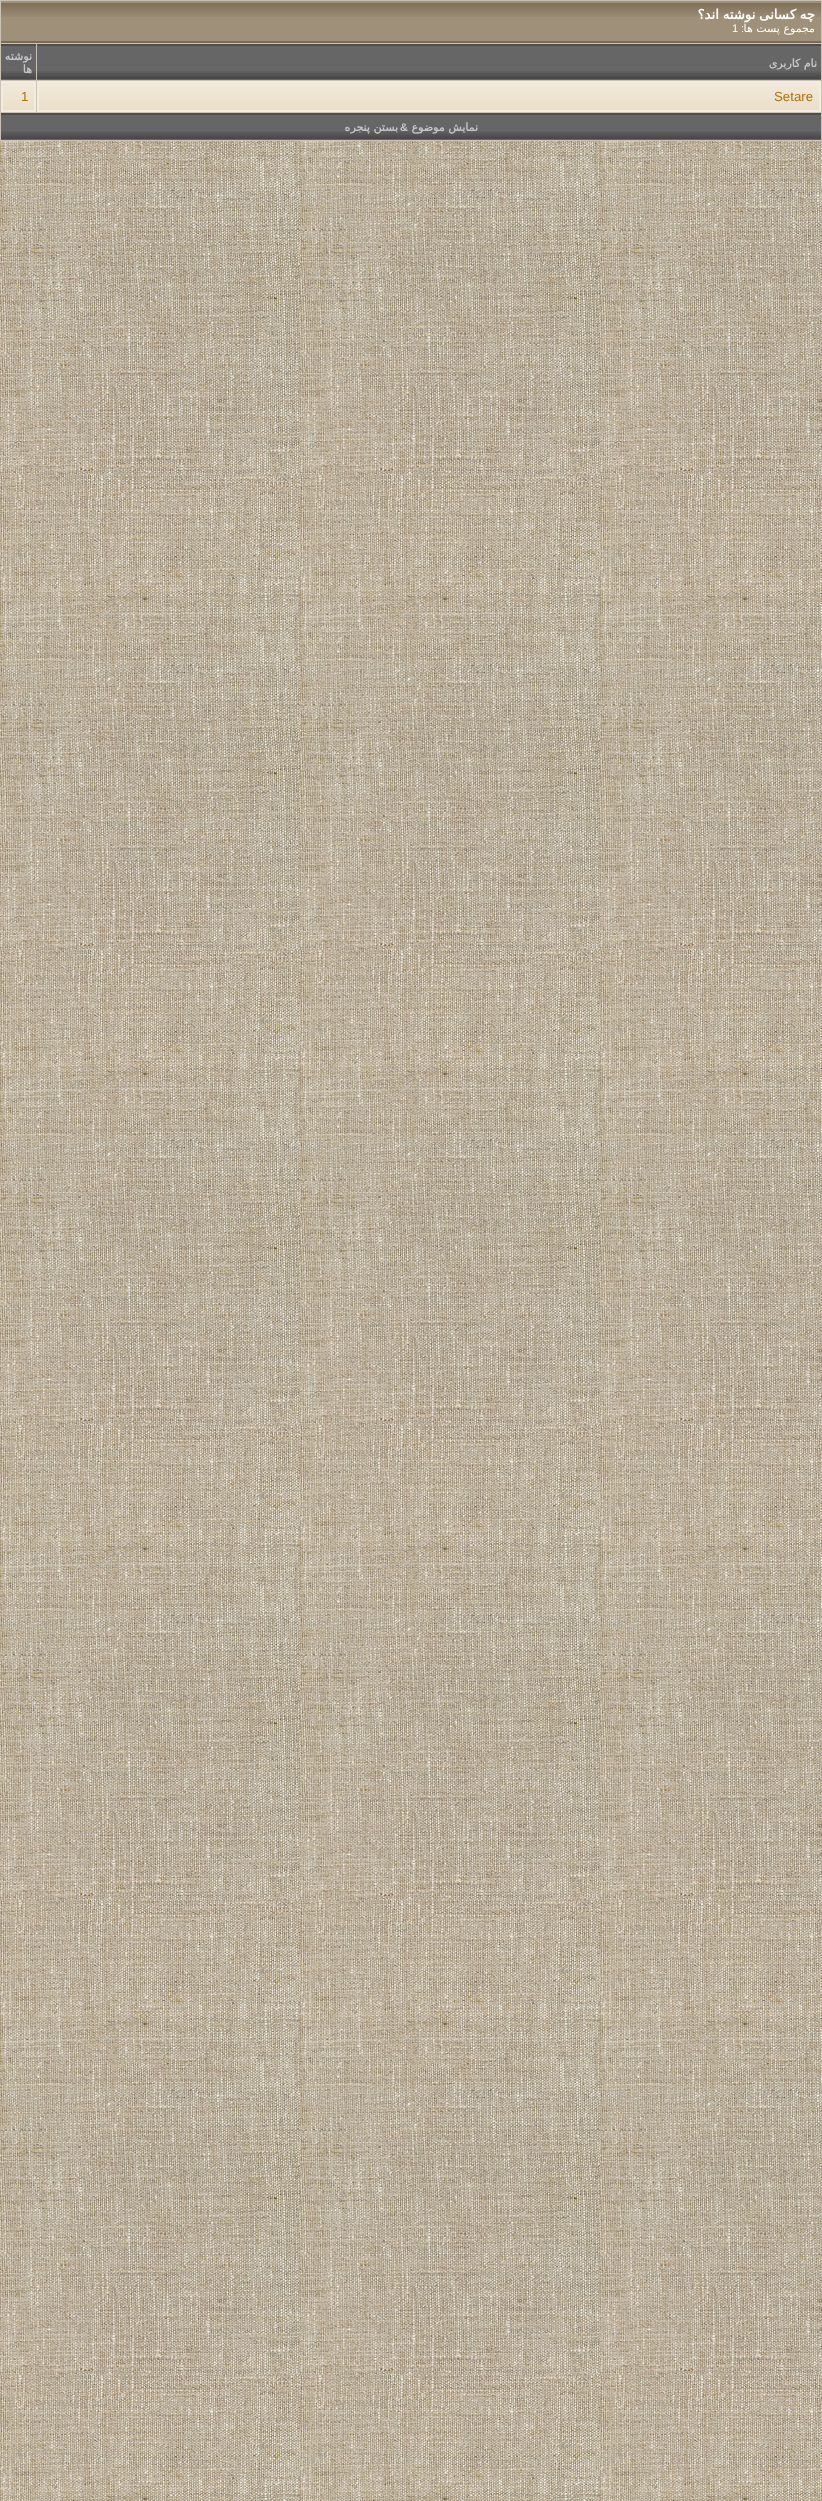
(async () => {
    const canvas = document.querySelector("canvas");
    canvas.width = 822;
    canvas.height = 2501;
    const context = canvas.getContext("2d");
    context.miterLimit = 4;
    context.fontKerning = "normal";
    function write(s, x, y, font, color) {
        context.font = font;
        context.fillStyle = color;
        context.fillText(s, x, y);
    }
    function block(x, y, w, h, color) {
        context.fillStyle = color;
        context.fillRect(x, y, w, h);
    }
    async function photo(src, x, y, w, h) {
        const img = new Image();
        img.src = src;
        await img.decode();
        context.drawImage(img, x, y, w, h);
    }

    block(0, 0, 822, 2501, "rgb(255, 255, 255)");
    await photo("media/1.png", 0, 141, 822, 2360);
    block(0, 0, 822, 141, "rgb(202, 195, 181)");
    block(1, 1, 820, 40, "rgb(158, 144, 121)");
    await photo("media/2.png", 1, 3, 820, 14);
    block(1, 41, 820, 2, "rgb(122, 106, 83)");
    context.wordSpacing = "-0.5px";
    context.direction = "rtl";
    write("چه کسانی نوشته اند؟", 815, 19, "bold 13.25px DejaVu Sans", "rgb(255, 255, 255)");
    context.wordSpacing = "0px";
    write("مجموع پست ها", 815, 32, "11px DejaVu Sans", "rgb(255, 255, 255)");
    write(":", 744, 32, "11px Liberation Sans", "rgb(255, 255, 255)");
    context.direction = "ltr";
    write("1", 732, 32, "11px Liberation Sans", "rgb(255, 255, 255)");
    block(37, 46, 784, 34, "rgb(102, 102, 102)");
    await photo("media/3.png", 37, 71, 784, 8);
    block(37, 44, 784, 2, "rgb(78, 78, 78)");
    context.direction = "rtl";
    write("نام کاربری", 817, 67, "bold 11px DejaVu Sans", "rgb(199, 199, 199)");
    block(1, 46, 35, 34, "rgb(102, 102, 102)");
    await photo("media/4.png", 1, 71, 35, 8);
    block(1, 44, 35, 2, "rgb(78, 78, 78)");
    write("نوشته", 32, 60, "bold 11px DejaVu Sans", "rgb(199, 199, 199)");
    write("ها", 32, 73, "bold 11px DejaVu Sans", "rgb(199, 199, 199)");
    await photo("media/5.png", 39, 83, 780, 27);
    context.strokeStyle = "rgb(243, 236, 223)";
    context.lineWidth = 2;
    context.strokeRect(38, 82, 782, 29);
    context.direction = "ltr";
    write("Setare", 774, 101, "13.25px Liberation Sans", "rgb(174, 113, 14)");
    await photo("media/6.png", 3, 83, 31, 27);
    context.strokeRect(2, 82, 33, 29);
    write("1", 21, 101, "13.25px Liberation Sans", "rgb(174, 113, 14)");
    block(1, 115, 820, 25, "rgb(102, 102, 102)");
    await photo("media/7.png", 1, 131, 820, 8);
    block(1, 113, 820, 2, "rgb(78, 78, 78)");
    context.direction = "rtl";
    write("نمایش موضوع", 478, 131, "bold 11px DejaVu Sans", "rgb(199, 199, 199)");
    write("&", 408, 131, "bold 11px Liberation Sans", "rgb(199, 199, 199)");
    write("بستن پنجره", 398, 131, "bold 11px DejaVu Sans", "rgb(199, 199, 199)");
})();
